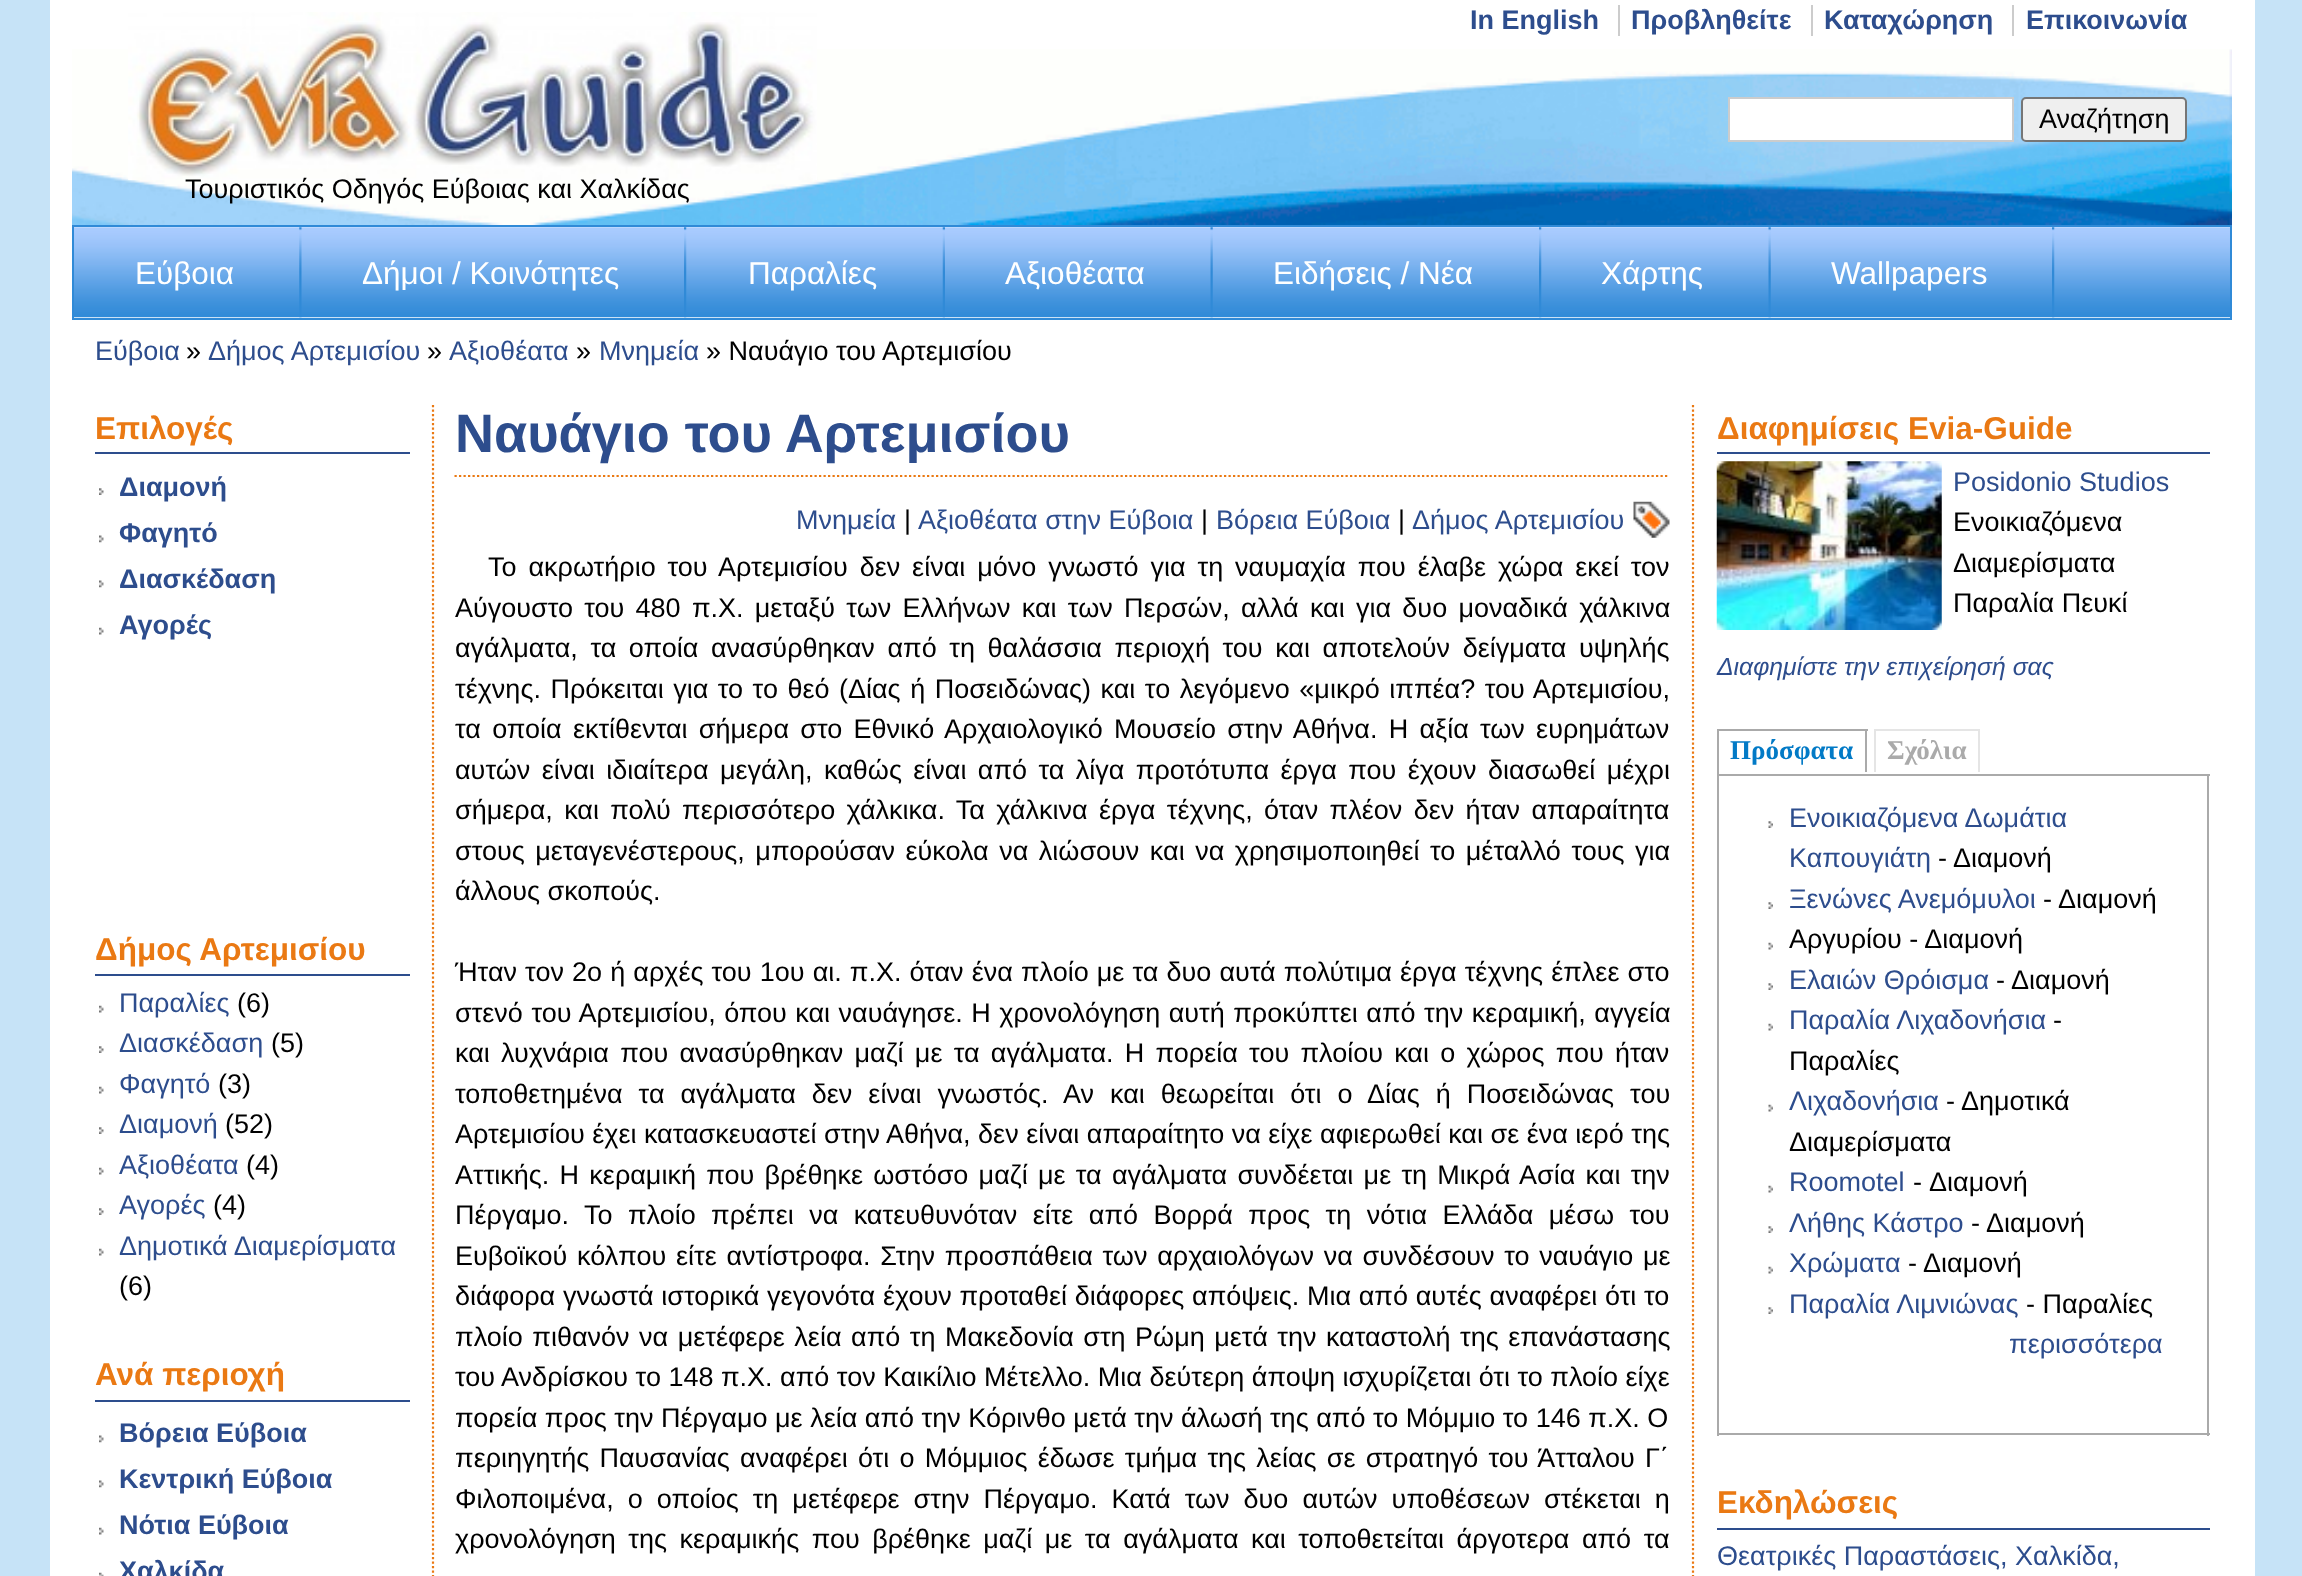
(async () => {
    const canvas = document.querySelector("canvas");
    canvas.width = 2302;
    canvas.height = 1576;
    const context = canvas.getContext("2d");
    context.miterLimit = 4;
    context.fontKerning = "normal";
    function write(s, x, y, font, color) {
        context.font = font;
        context.fillStyle = color;
        context.fillText(s, x, y);
    }
    function block(x, y, w, h, color) {
        context.fillStyle = color;
        context.fillRect(x, y, w, h);
    }
    async function photo(src, x, y, w, h) {
        const img = new Image();
        img.src = src;
        await img.decode();
        context.drawImage(img, x, y, w, h);
    }

    block(0, 0, 2302, 1576, "rgb(198, 227, 247)");
    block(50, 0, 2205, 1576, "rgb(255, 255, 255)");
    await photo("media/1.png", 72, 49, 2160, 176);
    write("In English", 1470, 29, "bold 27px Liberation Sans", "rgb(45, 77, 141)");
    write("Προβληθείτε", 1631, 29, "bold 27px Liberation Sans", "rgb(45, 77, 141)");
    block(1618, 5, 2, 31, "rgb(204, 204, 204)");
    write("Καταχώρηση", 1824, 29, "bold 27px Liberation Sans", "rgb(45, 77, 141)");
    block(1811, 5, 2, 31, "rgb(204, 204, 204)");
    write("Επικοινωνία", 2026, 29, "bold 27px Liberation Sans", "rgb(45, 77, 141)");
    block(2012, 5, 2, 31, "rgb(204, 204, 204)");
    context.fillStyle = "rgb(255, 255, 255)";
    context.beginPath();
    context.rect(1729, 98, 284, 43);
    context.fill();
    context.strokeStyle = "rgb(204, 204, 204)";
    context.lineWidth = 2;
    context.stroke();
    context.fillStyle = "rgb(239, 239, 239)";
    context.beginPath();
    context.roundRect(2022, 98, 164, 43, 4);
    context.fill();
    context.strokeStyle = "rgb(118, 118, 118)";
    context.stroke();
    write("Αναζήτηση", 2039, 128, "27px Liberation Sans", "rgb(0, 0, 0)");
    await photo("media/2.png", 128, 12, 689, 168);
    write("Τουριστικός Οδηγός Εύβοιας και Χαλκίδας", 185, 198, "27px Liberation Sans", "rgb(0, 0, 0)");
    await photo("media/3.png", 74, 227, 2156, 91);
    context.strokeStyle = "rgb(48, 138, 215)";
    context.strokeRect(73, 226, 2158, 93);
    await photo("media/4.png", 299, 227, 3, 91);
    write("Εύβοια", 135, 284, "31.5px Liberation Sans", "rgb(255, 255, 255)");
    await photo("media/5.png", 684, 227, 3, 91);
    write("Δήμοι / Κοινότητες", 362, 284, "31.5px Liberation Sans", "rgb(255, 255, 255)");
    await photo("media/6.png", 942, 227, 3, 91);
    write("Παραλίες", 748, 284, "31.5px Liberation Sans", "rgb(255, 255, 255)");
    await photo("media/7.png", 1210, 227, 3, 91);
    write("Αξιοθέατα", 1005, 284, "31.5px Liberation Sans", "rgb(255, 255, 255)");
    await photo("media/5.png", 1539, 227, 3, 91);
    write("Ειδήσεις / Νέα", 1273, 284, "31.5px Liberation Sans", "rgb(255, 255, 255)");
    await photo("media/7.png", 1768, 227, 3, 91);
    write("Χάρτης", 1601, 284, "31.5px Liberation Sans", "rgb(255, 255, 255)");
    await photo("media/5.png", 2052, 227, 3, 91);
    write("Wallpapers", 1831, 284, "31.5px Liberation Sans", "rgb(255, 255, 255)");
    write("Εύβοια", 95, 360, "27px Liberation Sans", "rgb(45, 77, 141)");
    write("»", 186, 360, "27px Liberation Sans", "rgb(0, 0, 0)");
    write("Δήμος Αρτεμισίου", 208, 360, "27px Liberation Sans", "rgb(45, 77, 141)");
    write("»", 427, 360, "27px Liberation Sans", "rgb(0, 0, 0)");
    write("Αξιοθέατα", 449, 360, "27px Liberation Sans", "rgb(45, 77, 141)");
    write("»", 576, 360, "27px Liberation Sans", "rgb(0, 0, 0)");
    write("Μνημεία", 599, 360, "27px Liberation Sans", "rgb(45, 77, 141)");
    write("» Ναυάγιο του Αρτεμισίου", 706, 360, "27px Liberation Sans", "rgb(0, 0, 0)");
    context.beginPath();
    context.moveTo(433, 405);
    context.lineTo(433, 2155.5);
    context.strokeStyle = "rgb(234, 121, 19)";
    context.lineWidth = 2.2;
    context.setLineDash([2.25, 2.25]);
    context.stroke();
    block(95, 452, 315, 2, "rgb(45, 77, 141)");
    write("Επιλογές", 95, 439, "bold 31.5px Liberation Sans", "rgb(234, 121, 19)");
    await photo("media/8.png", 99, 488, 5, 7);
    write("Διαμονή", 119, 496, "bold 27px Liberation Sans", "rgb(45, 77, 141)");
    await photo("media/9.png", 99, 535, 5, 8);
    write("Φαγητό", 119, 542, "bold 27px Liberation Sans", "rgb(45, 77, 141)");
    await photo("media/9.png", 99, 580, 5, 8);
    write("Διασκέδαση", 119, 588, "bold 27px Liberation Sans", "rgb(45, 77, 141)");
    await photo("media/10.png", 99, 627, 5, 8);
    write("Αγορές", 119, 634, "bold 27px Liberation Sans", "rgb(45, 77, 141)");
    block(95, 974, 315, 2, "rgb(45, 77, 141)");
    write("Δήμος Αρτεμισίου", 95, 960, "bold 31.5px Liberation Sans", "rgb(234, 121, 19)");
    await photo("media/10.png", 99, 1005, 5, 8);
    write("Παραλίες", 119, 1012, "27px Liberation Sans", "rgb(45, 77, 141)");
    write("(6)", 237, 1012, "27px Liberation Sans", "rgb(0, 0, 0)");
    await photo("media/8.png", 99, 1046, 5, 7);
    write("Διασκέδαση", 119, 1052, "27px Liberation Sans", "rgb(45, 77, 141)");
    write("(5)", 271, 1052, "27px Liberation Sans", "rgb(0, 0, 0)");
    await photo("media/10.png", 99, 1086, 5, 8);
    write("Φαγητό", 119, 1093, "27px Liberation Sans", "rgb(45, 77, 141)");
    write("(3)", 218, 1093, "27px Liberation Sans", "rgb(0, 0, 0)");
    await photo("media/8.png", 99, 1127, 5, 7);
    write("Διαμονή", 119, 1133, "27px Liberation Sans", "rgb(45, 77, 141)");
    write("(52)", 225, 1133, "27px Liberation Sans", "rgb(0, 0, 0)");
    await photo("media/10.png", 99, 1167, 5, 8);
    write("Αξιοθέατα", 119, 1174, "27px Liberation Sans", "rgb(45, 77, 141)");
    write("(4)", 246, 1174, "27px Liberation Sans", "rgb(0, 0, 0)");
    await photo("media/8.png", 99, 1208, 5, 7);
    write("Αγορές", 119, 1214, "27px Liberation Sans", "rgb(45, 77, 141)");
    write("(4)", 213, 1214, "27px Liberation Sans", "rgb(0, 0, 0)");
    await photo("media/10.png", 99, 1248, 5, 8);
    write("Δημοτικά Διαμερίσματα", 119, 1255, "27px Liberation Sans", "rgb(45, 77, 141)");
    write("(6)", 119, 1295, "27px Liberation Sans", "rgb(0, 0, 0)");
    block(95, 1400, 315, 2, "rgb(45, 77, 141)");
    write("Ανά περιοχή", 95, 1385, "bold 31.5px Liberation Sans", "rgb(234, 121, 19)");
    await photo("media/9.png", 99, 1435, 5, 8);
    write("Βόρεια Εύβοια", 119, 1442, "bold 27px Liberation Sans", "rgb(45, 77, 141)");
    await photo("media/9.png", 99, 1480, 5, 8);
    write("Κεντρική Εύβοια", 119, 1488, "bold 27px Liberation Sans", "rgb(45, 77, 141)");
    await photo("media/10.png", 99, 1527, 5, 8);
    write("Νότια Εύβοια", 119, 1534, "bold 27px Liberation Sans", "rgb(45, 77, 141)");
    await photo("media/11.png", 99, 1572, 5, 4);
    write("Χαλκίδα", 119, 1580, "bold 27px Liberation Sans", "rgb(45, 77, 141)");
    context.beginPath();
    context.moveTo(454.5, 476);
    context.lineTo(1669.5, 476);
    context.stroke();
    write("Ναυάγιο του Αρτεμισίου", 455, 452, "bold 54px Liberation Sans", "rgb(45, 77, 141)");
    await photo("media/12.png", 1633, 501, 37, 37);
    write("Μνημεία", 796, 529, "27px Liberation Sans", "rgb(45, 77, 141)");
    write("|", 904, 529, "27px Liberation Sans", "rgb(0, 0, 0)");
    write("Αξιοθέατα στην Εύβοια", 918, 529, "27px Liberation Sans", "rgb(45, 77, 141)");
    write("|", 1201, 529, "27px Liberation Sans", "rgb(0, 0, 0)");
    write("Βόρεια Εύβοια", 1216, 529, "27px Liberation Sans", "rgb(45, 77, 141)");
    write("|", 1398, 529, "27px Liberation Sans", "rgb(0, 0, 0)");
    write("Δήμος Αρτεμισίου", 1412, 529, "27px Liberation Sans", "rgb(45, 77, 141)");
    context.wordSpacing = "4.4px";
    write("Το ακρωτήριο του Αρτεμισίου δεν είναι μόνο γνωστό για τη ναυμαχία που έλαβε χώρα εκεί τον", 488, 576, "27px Liberation Sans", "rgb(0, 0, 0)");
    context.wordSpacing = "3.75px";
    write("Αύγουστο του 480 π.Χ. μεταξύ των Ελλήνων και των Περσών, αλλά και για δυο μοναδικά χάλκινα", 455, 617, "27px Liberation Sans", "rgb(0, 0, 0)");
    context.wordSpacing = "5.1px";
    write("αγάλματα, τα οποία ανασύρθηκαν από τη θαλάσσια περιοχή του και αποτελούν δείγματα υψηλής", 455, 657, "27px Liberation Sans", "rgb(0, 0, 0)");
    context.wordSpacing = "2px";
    write("τέχνης. Πρόκειται για το το θεό (Δίας ή Ποσειδώνας) και το λεγόμενο «μικρό ιππέα? του Αρτεμισίου,", 455, 698, "27px Liberation Sans", "rgb(0, 0, 0)");
    context.wordSpacing = "3.75px";
    write("τα οποία εκτίθενται σήμερα στο Εθνικό Αρχαιολογικό Μουσείο στην Αθήνα. Η αξία των ευρημάτων", 455, 738, "27px Liberation Sans", "rgb(0, 0, 0)");
    context.wordSpacing = "3.9px";
    write("αυτών είναι ιδιαίτερα μεγάλη, καθώς είναι από τα λίγα προτότυπα έργα που έχουν διασωθεί μέχρι", 455, 779, "27px Liberation Sans", "rgb(0, 0, 0)");
    write("σήμερα, και πολύ περισσότερο χάλκικα. Τα χάλκινα έργα τέχνης, όταν πλέον δεν ήταν απαραίτητα", 455, 819, "27px Liberation Sans", "rgb(0, 0, 0)");
    context.wordSpacing = "3px";
    write("στους μεταγενέστερους, μπορούσαν εύκολα να λιώσουν και να χρησιμοποιηθεί το μέταλλό τους για", 455, 860, "27px Liberation Sans", "rgb(0, 0, 0)");
    context.wordSpacing = "0px";
    write("άλλους σκοπούς.", 455, 900, "27px Liberation Sans", "rgb(0, 0, 0)");
    context.wordSpacing = "0.6px";
    write("Ήταν τον 2ο ή αρχές του 1ου αι. π.Χ. όταν ένα πλοίο με τα δυο αυτά πολύτιμα έργα τέχνης έπλεε στο", 455, 981, "27px Liberation Sans", "rgb(0, 0, 0)");
    context.wordSpacing = "1px";
    write("στενό του Αρτεμισίου, όπου και ναυάγησε. Η χρονολόγηση αυτή προκύπτει από την κεραμική, αγγεία", 455, 1022, "27px Liberation Sans", "rgb(0, 0, 0)");
    context.wordSpacing = "3.75px";
    write("και λυχνάρια που ανασύρθηκαν μαζί με τα αγάλματα. Η πορεία του πλοίου και ο χώρος που ήταν", 455, 1062, "27px Liberation Sans", "rgb(0, 0, 0)");
    context.wordSpacing = "8.5px";
    write("τοποθετημένα τα αγάλματα δεν είναι γνωστός. Αν και θεωρείται ότι ο Δίας ή Ποσειδώνας του", 455, 1103, "27px Liberation Sans", "rgb(0, 0, 0)");
    context.wordSpacing = "0px";
    write("Αρτεμισίου έχει κατασκευαστεί στην Αθήνα, δεν είναι απαραίτητο να είχε αφιερωθεί και σε ένα ιερό της", 455, 1143, "27px Liberation Sans", "rgb(0, 0, 0)");
    context.wordSpacing = "2.75px";
    write("Αττικής. Η κεραμική που βρέθηκε ωστόσο μαζί με τα αγάλματα συνδέεται με τη Μικρά Ασία και την", 455, 1184, "27px Liberation Sans", "rgb(0, 0, 0)");
    context.wordSpacing = "7.9px";
    write("Πέργαμο. Το πλοίο πρέπει να κατευθυνόταν είτε από Βορρά προς τη νότια Ελλάδα μέσω του", 455, 1224, "27px Liberation Sans", "rgb(0, 0, 0)");
    context.wordSpacing = "2.25px";
    write("Ευβοϊκού κόλπου είτε αντίστροφα. Στην προσπάθεια των αρχαιολόγων να συνδέσουν το ναυάγιο με", 455, 1265, "27px Liberation Sans", "rgb(0, 0, 0)");
    context.wordSpacing = "0.25px";
    write("διάφορα γνωστά ιστορικά γεγονότα έχουν προταθεί διάφορες απόψεις. Μια από αυτές αναφέρει ότι το", 455, 1305, "27px Liberation Sans", "rgb(0, 0, 0)");
    context.wordSpacing = "2px";
    write("πλοίο πιθανόν να μετέφερε λεία από τη Μακεδονία στη Ρώμη μετά την καταστολή της επανάστασης", 455, 1346, "27px Liberation Sans", "rgb(0, 0, 0)");
    context.wordSpacing = "0px";
    write("του Ανδρίσκου το 148 π.Χ. από τον Καικίλιο Μέτελλο. Μια δεύτερη άποψη ισχυρίζεται ότι το πλοίο είχε", 455, 1386, "27px Liberation Sans", "rgb(0, 0, 0)");
    write("πορεία προς την Πέργαμο με λεία από την Κόρινθο μετά την άλωσή της από το Μόμμιο το 146 π.Χ. Ο", 455, 1427, "27px Liberation Sans", "rgb(0, 0, 0)");
    context.wordSpacing = "2.75px";
    write("περιηγητής Παυσανίας αναφέρει ότι ο Μόμμιος έδωσε τμήμα της λείας σε στρατηγό του Άτταλου Γ΄", 455, 1467, "27px Liberation Sans", "rgb(0, 0, 0)");
    context.wordSpacing = "6.5px";
    write("Φιλοποιμένα, ο οποίος τη μετέφερε στην Πέργαμο. Κατά των δυο αυτών υποθέσεων στέκεται η", 455, 1508, "27px Liberation Sans", "rgb(0, 0, 0)");
    context.wordSpacing = "5px";
    write("χρονολόγηση της κεραμικής που βρέθηκε μαζί με τα αγάλματα και τοποθετείται άργοτερα από τα", 455, 1548, "27px Liberation Sans", "rgb(0, 0, 0)");
    context.beginPath();
    context.moveTo(1693, 405);
    context.lineTo(1693, 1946);
    context.stroke();
    block(1717, 452, 493, 2, "rgb(45, 77, 141)");
    context.wordSpacing = "0px";
    write("Διαφημίσεις Evia-Guide", 1717, 439, "bold 31.5px Liberation Sans", "rgb(234, 121, 19)");
    await photo("media/13.png", 1716, 461, 226, 169);
    write("Posidonio Studios", 1953, 491, "27px Liberation Sans", "rgb(45, 77, 141)");
    write("Ενοικιαζόμενα", 1953, 531, "27px Liberation Sans", "rgb(0, 0, 0)");
    write("Διαμερίσματα", 1953, 572, "27px Liberation Sans", "rgb(0, 0, 0)");
    write("Παραλία Πευκί", 1953, 612, "27px Liberation Sans", "rgb(0, 0, 0)");
    write("Διαφημίστε την επιχείρησή σας", 1717, 675, "italic 24.75px Liberation Sans", "rgb(45, 77, 141)");
    block(1717, 774, 493, 2, "rgb(170, 170, 170)");
    write("Πρόσφατα", 1730, 759, "bold 27px Liberation Serif", "rgb(2, 122, 198)");
    block(1717, 729, 151, 2, "rgb(170, 170, 170)");
    block(1865, 729, 2, 45, "rgb(170, 170, 170)");
    block(1865, 772, 3, 2, "rgb(255, 255, 255)");
    block(1717, 729, 2, 45, "rgb(170, 170, 170)");
    write("Σχόλια", 1887, 759, "bold 27px Liberation Serif", "rgb(170, 170, 170)");
    block(1874, 729, 106, 2, "rgb(229, 229, 229)");
    block(1978, 729, 2, 43, "rgb(229, 229, 229)");
    block(1874, 729, 2, 43, "rgb(229, 229, 229)");
    block(2207, 776, 2, 660, "rgb(170, 170, 170)");
    block(1717, 1433, 493, 2, "rgb(170, 170, 170)");
    block(1717, 776, 2, 660, "rgb(170, 170, 170)");
    await photo("media/14.png", 1768, 821, 5, 7);
    write("Ενοικιαζόμενα Δωμάτια", 1789, 827, "27px Liberation Sans", "rgb(45, 77, 141)");
    write("Καπουγιάτη", 1789, 867, "27px Liberation Sans", "rgb(45, 77, 141)");
    write("- Διαμονή", 1938, 867, "27px Liberation Sans", "rgb(0, 0, 0)");
    await photo("media/14.png", 1768, 902, 5, 7);
    write("Ξενώνες Ανεμόμυλοι", 1789, 908, "27px Liberation Sans", "rgb(45, 77, 141)");
    write("- Διαμονή", 2043, 908, "27px Liberation Sans", "rgb(0, 0, 0)");
    await photo("media/15.png", 1768, 942, 5, 8);
    write("Αργυρίου - Διαμονή", 1789, 948, "27px Liberation Sans", "rgb(0, 0, 0)");
    await photo("media/14.png", 1768, 983, 5, 7);
    write("Ελαιών Θρόισμα", 1789, 989, "27px Liberation Sans", "rgb(45, 77, 141)");
    write("- Διαμονή", 1996, 989, "27px Liberation Sans", "rgb(0, 0, 0)");
    await photo("media/15.png", 1768, 1023, 5, 8);
    write("Παραλία Λιχαδονήσια", 1789, 1029, "27px Liberation Sans", "rgb(45, 77, 141)");
    write("-", 2053, 1029, "27px Liberation Sans", "rgb(0, 0, 0)");
    write("Παραλίες", 1789, 1070, "27px Liberation Sans", "rgb(0, 0, 0)");
    await photo("media/15.png", 1768, 1104, 5, 8);
    write("Λιχαδονήσια", 1789, 1110, "27px Liberation Sans", "rgb(45, 77, 141)");
    write("- Δημοτικά", 1946, 1110, "27px Liberation Sans", "rgb(0, 0, 0)");
    write("Διαμερίσματα", 1789, 1151, "27px Liberation Sans", "rgb(0, 0, 0)");
    await photo("media/15.png", 1768, 1185, 5, 8);
    write("Roomotel", 1789, 1191, "27px Liberation Sans", "rgb(45, 77, 141)");
    context.wordSpacing = "1px";
    write("- Διαμονή", 1913, 1191, "27px Liberation Sans", "rgb(0, 0, 0)");
    await photo("media/14.png", 1768, 1226, 5, 7);
    context.wordSpacing = "0px";
    write("Λήθης Κάστρο", 1789, 1232, "27px Liberation Sans", "rgb(45, 77, 141)");
    write("- Διαμονή", 1971, 1232, "27px Liberation Sans", "rgb(0, 0, 0)");
    await photo("media/15.png", 1768, 1266, 5, 8);
    write("Χρώματα", 1789, 1272, "27px Liberation Sans", "rgb(45, 77, 141)");
    write("- Διαμονή", 1908, 1272, "27px Liberation Sans", "rgb(0, 0, 0)");
    await photo("media/14.png", 1768, 1307, 5, 7);
    write("Παραλία Λιμνιώνας", 1789, 1313, "27px Liberation Sans", "rgb(45, 77, 141)");
    write("- Παραλίες", 2026, 1313, "27px Liberation Sans", "rgb(0, 0, 0)");
    write("περισσότερα", 2009, 1353, "27px Liberation Sans", "rgb(45, 77, 141)");
    block(1717, 1528, 493, 2, "rgb(45, 77, 141)");
    write("Εκδηλώσεις", 1717, 1513, "bold 31.5px Liberation Sans", "rgb(234, 121, 19)");
    write("Θεατρικές Παραστάσεις, Χαλκίδα,", 1717, 1565, "27px Liberation Sans", "rgb(45, 77, 141)");
})();
